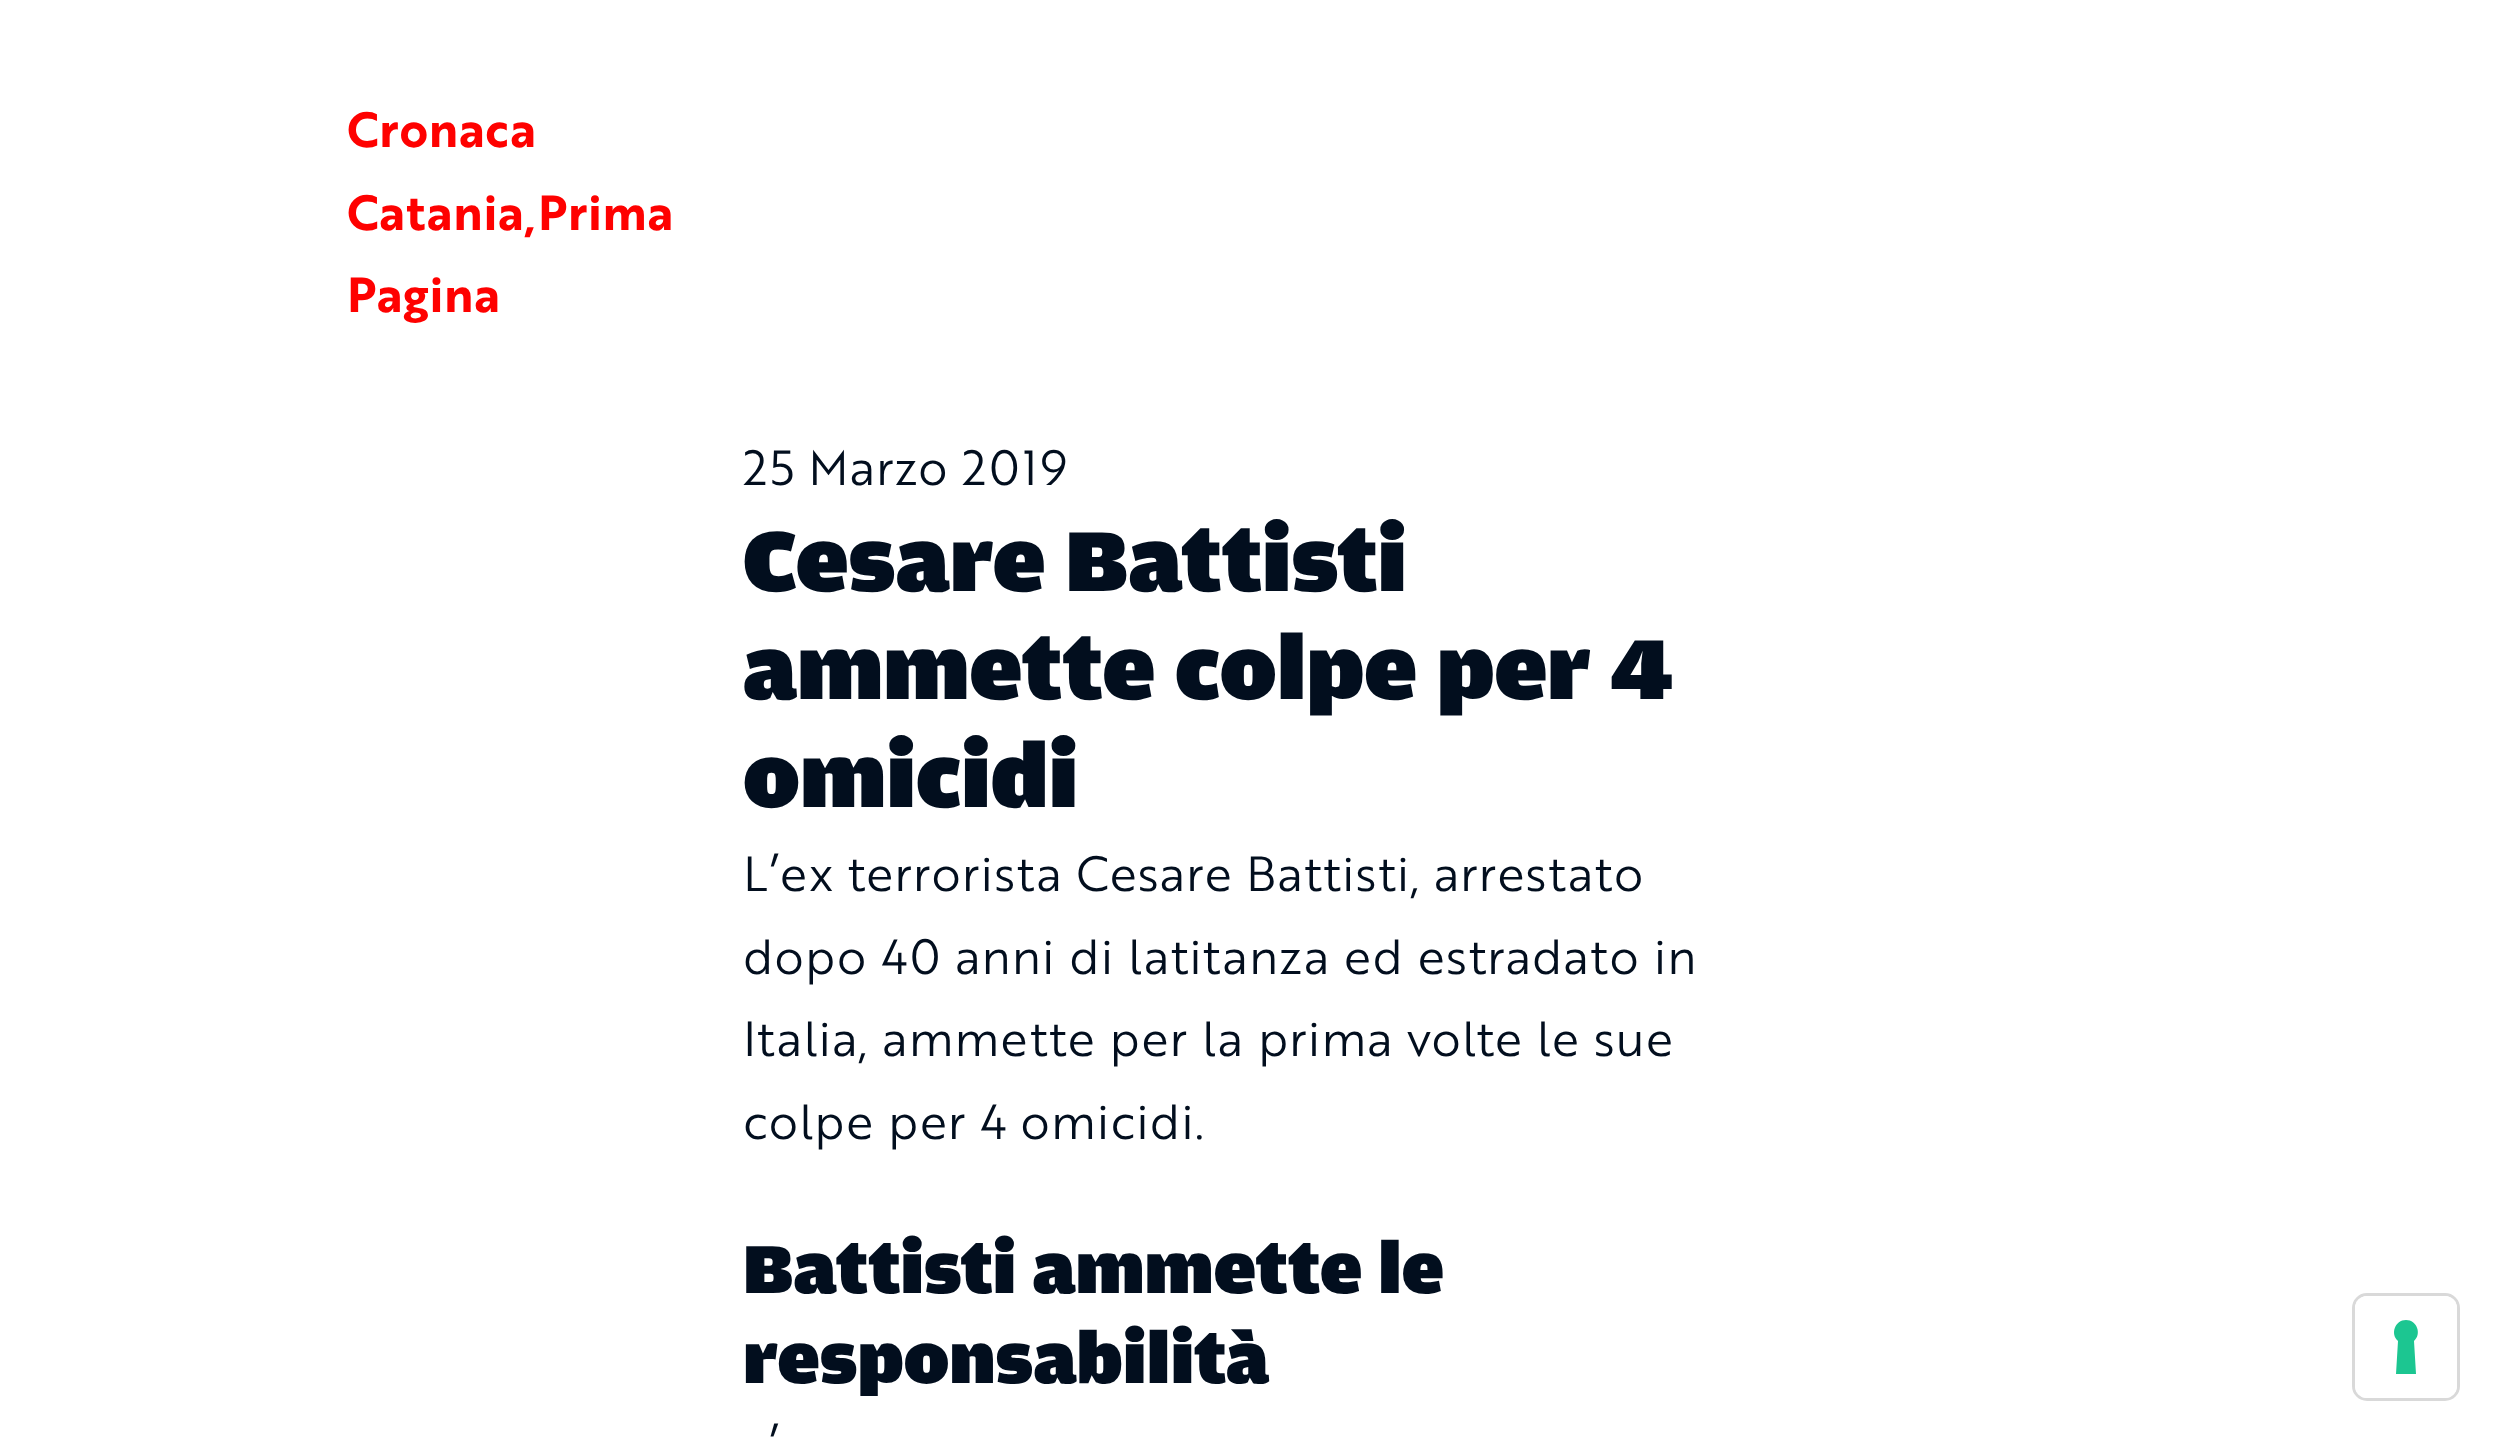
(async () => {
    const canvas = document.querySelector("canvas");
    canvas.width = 2505;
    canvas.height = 1445;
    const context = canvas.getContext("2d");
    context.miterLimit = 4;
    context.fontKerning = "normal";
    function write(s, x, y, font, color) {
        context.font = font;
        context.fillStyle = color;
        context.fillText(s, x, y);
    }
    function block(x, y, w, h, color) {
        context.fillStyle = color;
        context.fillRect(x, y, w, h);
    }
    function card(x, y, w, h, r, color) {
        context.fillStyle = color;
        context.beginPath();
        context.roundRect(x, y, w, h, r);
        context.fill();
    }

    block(0, 0, 2505, 1445, "rgb(255, 255, 255)");
    context.letterSpacing = "0.7px";
    write("Cronaca", 347, 147, "bold 48px 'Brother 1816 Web'", "rgb(254, 1, 0)");
    write("Catania,", 347, 230, "bold 48px 'Brother 1816 Web'", "rgb(254, 1, 0)");
    write("Prima", 538, 230, "bold 48px 'Brother 1816 Web'", "rgb(254, 1, 0)");
    write("Pagina", 347, 312, "bold 48px 'Brother 1816 Web'", "rgb(254, 1, 0)");
    write("25 Marzo 2019", 743, 485, "48px 'Brother 1816 Web'", "rgb(2, 14, 30)");
    context.letterSpacing = "0px";
    write("Cesare Battisti", 743, 591, "900 90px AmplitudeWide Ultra", "rgb(2, 14, 30)");
    write("ammette colpe per 4", 743, 699, "900 90px AmplitudeWide Ultra", "rgb(2, 14, 30)");
    write("omicidi", 743, 807, "900 90px AmplitudeWide Ultra", "rgb(2, 14, 30)");
    context.letterSpacing = "0.7px";
    write("L’ex terrorista Cesare Battisti, arrestato", 743, 891, "48px 'Brother 1816 Web'", "rgb(2, 14, 30)");
    context.wordSpacing = "0.25px";
    write("dopo 40 anni di latitanza ed estradato in", 743, 974, "48px 'Brother 1816 Web'", "rgb(2, 14, 30)");
    write("Italia, ammette per la prima volte le sue", 743, 1056, "48px 'Brother 1816 Web'", "rgb(2, 14, 30)");
    context.wordSpacing = "0px";
    write("colpe per 4 omicidi.", 743, 1139, "48px 'Brother 1816 Web'", "rgb(2, 14, 30)");
    context.letterSpacing = "0px";
    write("Battisti ammette le", 743, 1293, "900 72px AmplitudeWide Ultra", "rgb(2, 14, 30)");
    write("responsabilità", 743, 1383, "900 72px AmplitudeWide Ultra", "rgb(2, 14, 30)");
    context.letterSpacing = "0.7px";
    write("’", 770, 1461, "48px 'Brother 1816 Web'", "rgb(2, 14, 30)");
    context.beginPath();
    context.roundRect(2353.5, 1294.5, 105, 105, 13.5);
    context.strokeStyle = "rgb(217, 217, 217)";
    context.lineWidth = 3;
    context.stroke();
    card(2355, 1296, 102, 102, 12, "rgb(255, 255, 255)");
    context.fillStyle = "rgb(28, 198, 145)";
    context.beginPath();
    context.moveTo(2406, 1320);
    context.bezierCurveTo(2417, 1320, 2422, 1334, 2414, 1341);
    context.lineTo(2416, 1374);
    context.lineTo(2396, 1374);
    context.lineTo(2398, 1341);
    context.bezierCurveTo(2390, 1334, 2395, 1320, 2406, 1320);
    context.closePath();
    context.fill("evenodd");
})();
